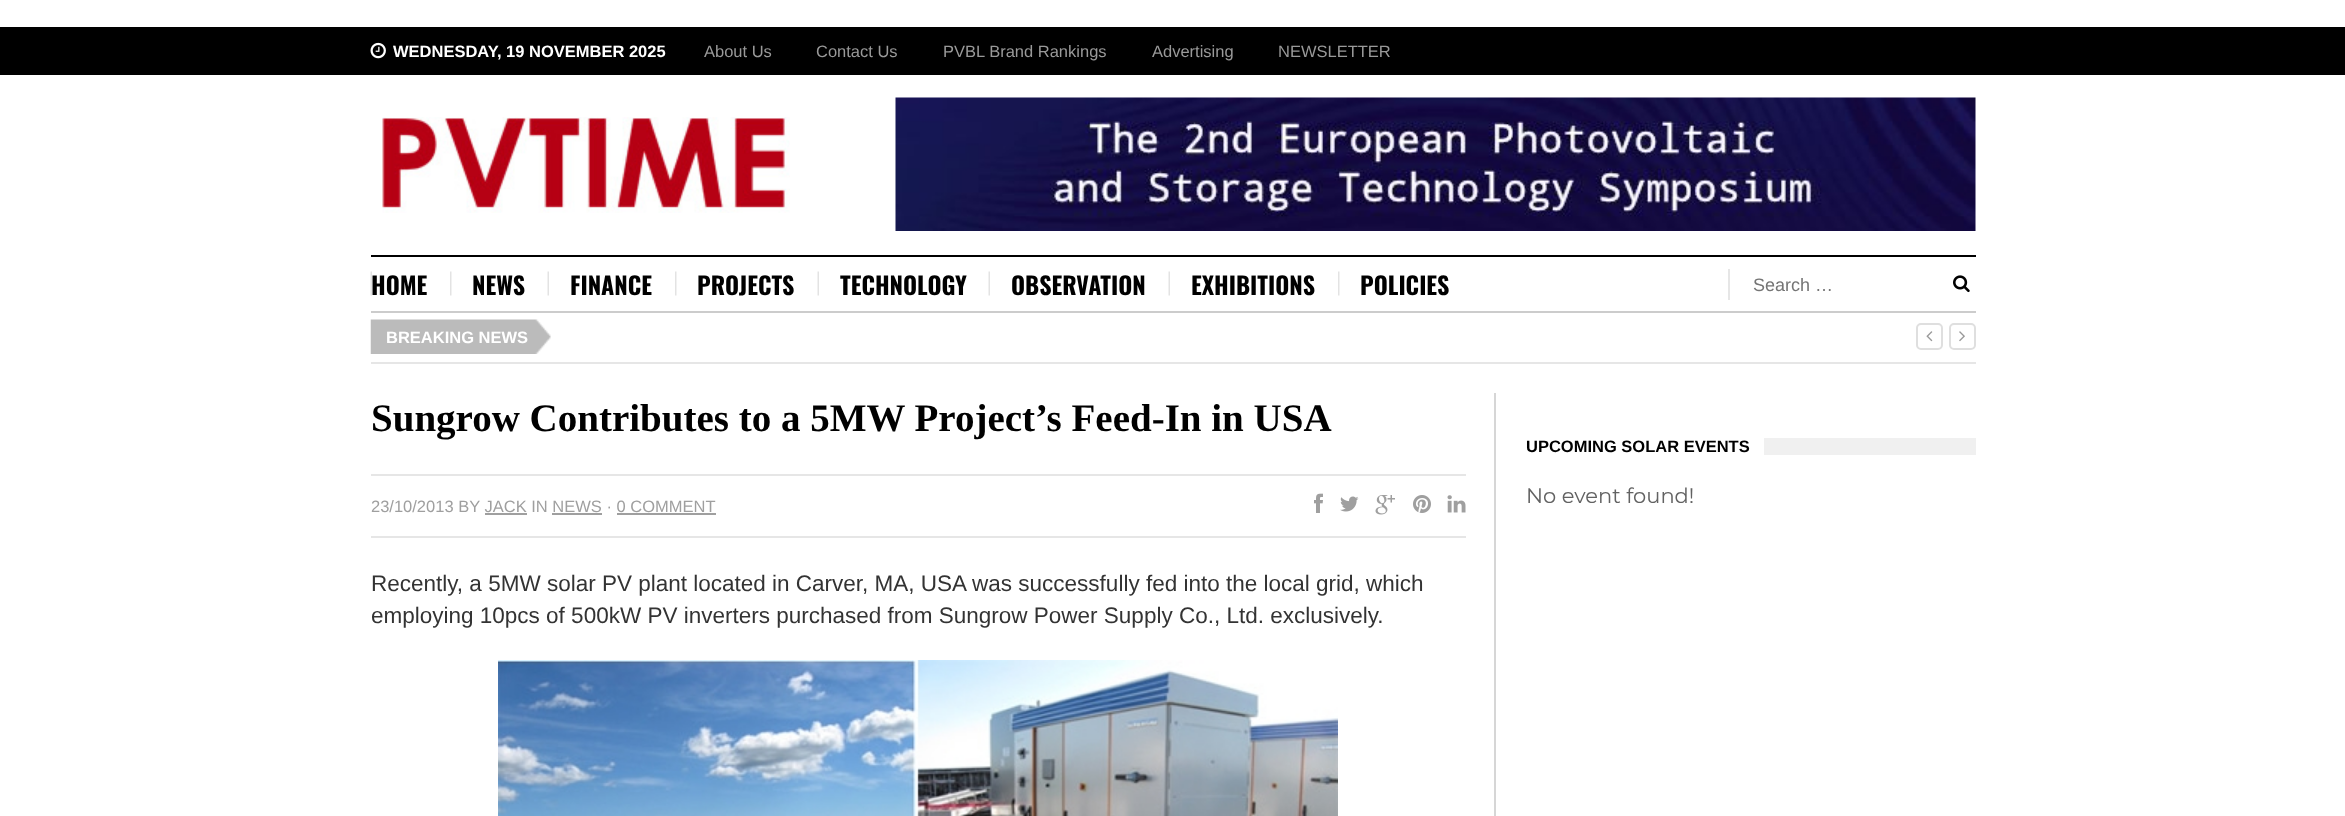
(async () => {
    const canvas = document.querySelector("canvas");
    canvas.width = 2345;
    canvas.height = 816;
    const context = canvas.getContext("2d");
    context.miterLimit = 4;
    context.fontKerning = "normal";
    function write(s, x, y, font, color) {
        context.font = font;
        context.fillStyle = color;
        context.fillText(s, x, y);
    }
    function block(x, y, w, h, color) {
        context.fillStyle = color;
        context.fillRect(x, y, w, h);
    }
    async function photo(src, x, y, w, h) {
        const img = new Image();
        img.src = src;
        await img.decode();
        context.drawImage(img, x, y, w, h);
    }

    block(0, 0, 2345, 816, "rgb(255, 255, 255)");
    block(0, 27, 2345, 48, "rgb(0, 0, 0)");
    await photo("media/1.png", 370, 42, 16, 17);
    write("WEDNESDAY, 19 NOVEMBER 2025", 393, 57, "bold 16.5px Liberation Sans", "rgb(255, 255, 255)");
    write("About Us", 704, 57, "16.5px Liberation Sans", "rgb(153, 153, 153)");
    write("Contact Us", 816, 57, "16.5px Liberation Sans", "rgb(153, 153, 153)");
    write("PVBL Brand Rankings", 943, 57, "16.5px Liberation Sans", "rgb(153, 153, 153)");
    write("Advertising", 1152, 57, "16.5px Liberation Sans", "rgb(153, 153, 153)");
    write("NEWSLETTER", 1278, 57, "16.5px Liberation Sans", "rgb(153, 153, 153)");
    await photo("media/2.png", 382, 117, 408, 96);
    await photo("media/3.png", 895, 97, 1081, 134);
    block(371, 255, 1605, 2, "rgb(0, 0, 0)");
    block(371, 311, 1605, 2, "rgb(204, 204, 204)");
    await photo("media/4.png", 370, 271, 2, 25);
    write("HOME", 371, 295, "bold 24px Oswald", "rgb(0, 0, 0)");
    await photo("media/5.png", 450, 271, 2, 25);
    write("NEWS", 472, 295, "bold 24px Oswald", "rgb(0, 0, 0)");
    await photo("media/4.png", 547, 271, 2, 25);
    write("FINANCE", 570, 295, "bold 24px Oswald", "rgb(0, 0, 0)");
    await photo("media/5.png", 675, 271, 2, 25);
    write("PROJECTS", 697, 295, "bold 24px Oswald", "rgb(0, 0, 0)");
    await photo("media/4.png", 817, 271, 2, 25);
    write("TECHNOLOGY", 840, 295, "bold 24px Oswald", "rgb(0, 0, 0)");
    await photo("media/4.png", 988, 271, 2, 25);
    write("OBSERVATION", 1011, 295, "bold 24px Oswald", "rgb(0, 0, 0)");
    await photo("media/4.png", 1168, 271, 2, 25);
    write("EXHIBITIONS", 1191, 295, "bold 24px Oswald", "rgb(0, 0, 0)");
    await photo("media/5.png", 1338, 271, 2, 25);
    write("POLICIES", 1360, 295, "bold 24px Oswald", "rgb(0, 0, 0)");
    block(1728, 269, 2, 31, "rgb(230, 230, 230)");
    write("Search …", 1753, 291, "18px Liberation Sans", "rgb(117, 117, 117)");
    await photo("media/6.png", 1953, 275, 17, 18);
    block(371, 362, 1605, 2, "rgb(230, 230, 230)");
    await photo("media/7.png", 370, 319, 181, 35);
    write("BREAKING NEWS", 386, 343, "bold 16.5px Liberation Sans", "rgb(255, 255, 255)");
    context.beginPath();
    context.roundRect(1917, 324, 25, 25, 4);
    context.strokeStyle = "rgb(223, 223, 223)";
    context.lineWidth = 2;
    context.stroke();
    await photo("media/8.png", 1926, 331, 7, 11);
    context.beginPath();
    context.roundRect(1950, 324, 25, 25, 4);
    context.stroke();
    await photo("media/9.png", 1959, 331, 6, 11);
    block(1494, 393, 2, 423, "rgb(214, 214, 214)");
    write("Sungrow Contributes to a 5MW Project’s Feed-In in USA", 371, 431, "bold 39px Liberation Serif", "rgb(0, 0, 0)");
    block(371, 474, 1095, 2, "rgb(230, 230, 230)");
    block(371, 536, 1095, 2, "rgb(230, 230, 230)");
    write("23/10/2013 BY JACK IN NEWS · 0 COMMENT", 371, 512, "16.5px Liberation Sans", "rgb(159, 159, 159)");
    block(485, 513, 42, 2, "rgb(159, 159, 159)");
    block(552, 513, 50, 2, "rgb(159, 159, 159)");
    block(617, 513, 99, 2, "rgb(159, 159, 159)");
    await photo("media/10.png", 1314, 493, 9, 20);
    await photo("media/11.png", 1340, 496, 19, 16);
    await photo("media/12.png", 1375, 495, 20, 20);
    await photo("media/13.png", 1413, 495, 18, 18);
    await photo("media/14.png", 1447, 495, 19, 18);
    write("Recently, a 5MW solar PV plant located in Carver, MA, USA was successfully fed into the local grid, which", 371, 591, "22.5px Liberation Sans", "rgb(51, 51, 51)");
    write("employing 10pcs of 500kW PV inverters purchased from Sungrow Power Supply Co., Ltd. exclusively.", 371, 623, "22.5px Liberation Sans", "rgb(51, 51, 51)");
    await photo("media/15.png", 498, 660, 840, 156);
    block(1764, 438, 212, 17, "rgb(240, 240, 240)");
    write("UPCOMING SOLAR EVENTS", 1526, 452, "bold 16.5px Liberation Sans", "rgb(0, 0, 0)");
    write("No event found!", 1526, 503, "21px Montserrat", "rgb(98, 98, 98)");
})();
